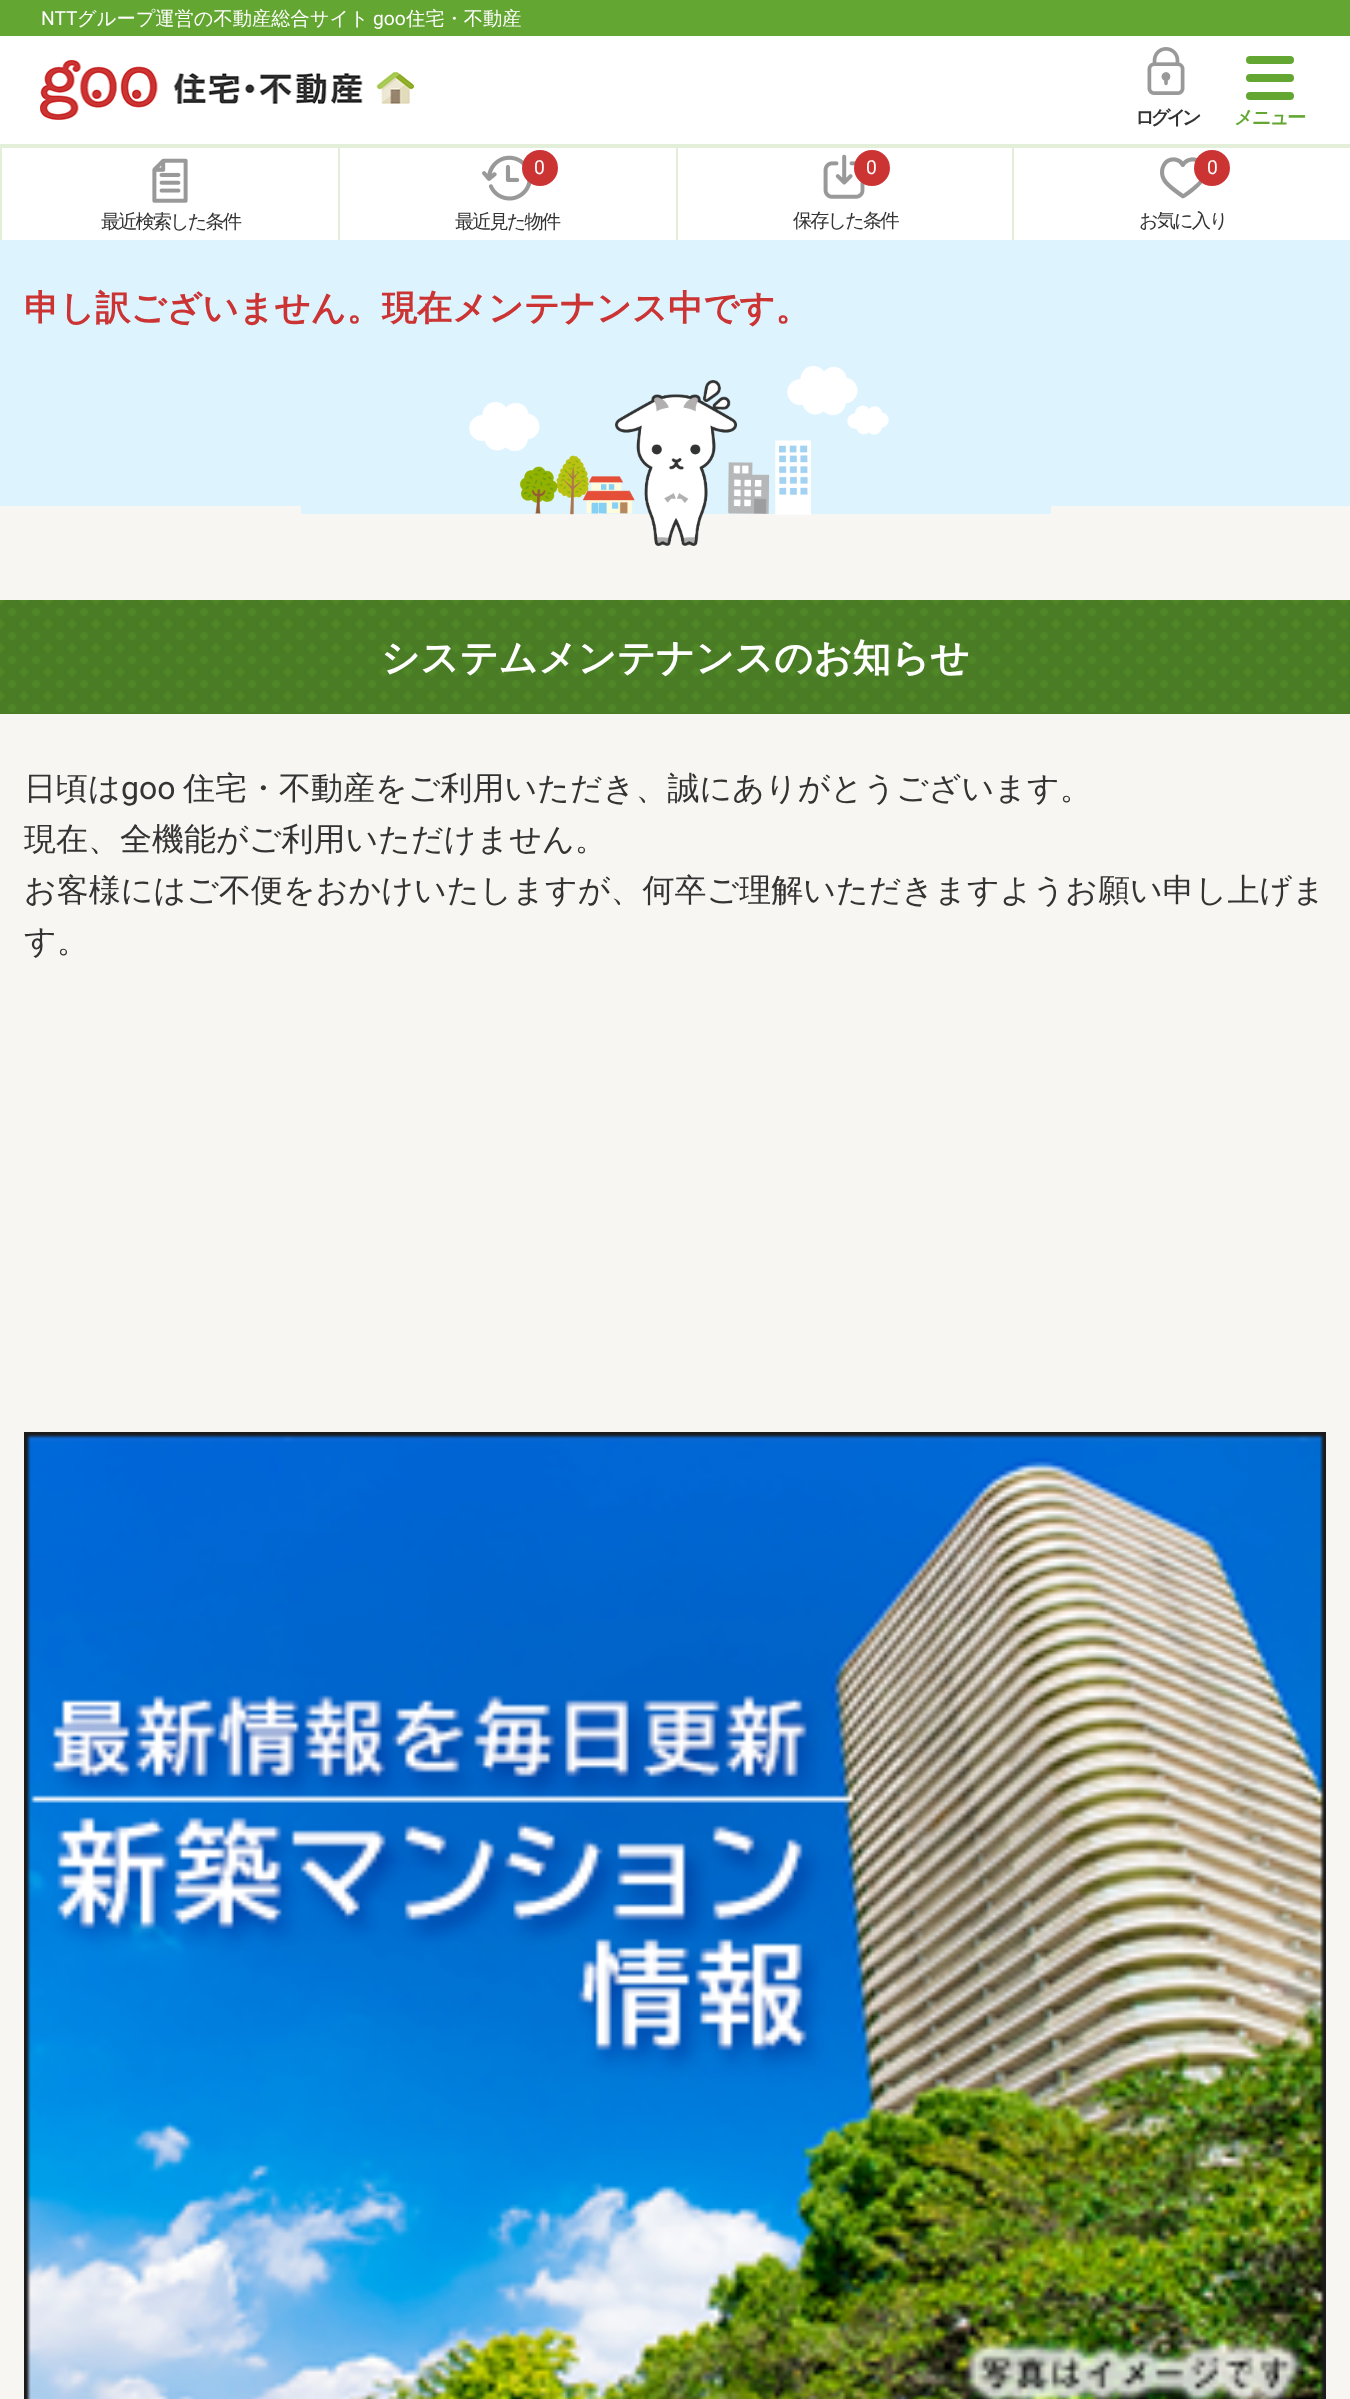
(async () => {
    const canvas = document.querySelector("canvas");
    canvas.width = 1350;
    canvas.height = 2399;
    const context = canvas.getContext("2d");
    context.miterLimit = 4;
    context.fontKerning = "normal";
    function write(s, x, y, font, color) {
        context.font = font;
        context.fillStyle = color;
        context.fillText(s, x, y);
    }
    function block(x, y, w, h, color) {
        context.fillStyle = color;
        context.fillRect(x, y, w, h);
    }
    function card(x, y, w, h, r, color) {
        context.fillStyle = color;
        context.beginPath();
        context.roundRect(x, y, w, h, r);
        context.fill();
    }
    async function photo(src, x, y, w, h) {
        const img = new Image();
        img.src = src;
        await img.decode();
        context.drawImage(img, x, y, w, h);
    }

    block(0, 0, 1350, 2399, "rgb(247, 246, 242)");
    block(0, 36, 1350, 108, "rgb(255, 255, 255)");
    block(0, 0, 1350, 36, "rgb(99, 166, 49)");
    write("NTT", 41, 25, "19.25px Roboto", "rgb(255, 255, 255)");
    write("グループ運営の不動産総合サイト", 77, 25, "500 19.25px WenQuanYi Zen Hei", "rgb(255, 255, 255)");
    write("goo", 373, 25, "19.25px Roboto", "rgb(255, 255, 255)");
    write("住宅・不動産", 406, 25, "500 19.25px WenQuanYi Zen Hei", "rgb(255, 255, 255)");
    await photo("media/1.png", 40, 60, 374, 60);
    await photo("media/2.png", 1147, 47, 38, 48);
    context.letterSpacing = "-4px";
    write("ログイン", 1135, 124, "bold 19.25px WenQuanYi Zen Hei", "rgb(51, 51, 51)");
    card(1246, 56, 48, 8, 4, "rgb(99, 166, 49)");
    card(1246, 74, 48, 8, 4, "rgb(99, 166, 49)");
    card(1246, 92, 48, 8, 4, "rgb(99, 166, 49)");
    context.letterSpacing = "-2px";
    write("メニュー", 1234, 124, "bold 19.25px WenQuanYi Zen Hei", "rgb(99, 166, 49)");
    block(0, 144, 1350, 4, "rgb(227, 239, 217)");
    block(2, 148, 336, 92, "rgb(255, 255, 255)");
    block(0, 148, 2, 92, "rgb(227, 239, 217)");
    await photo("media/3.png", 152, 158, 36, 45);
    write("最近検索した条件", 101, 228, "500 19.25px WenQuanYi Zen Hei", "rgb(51, 51, 51)");
    block(340, 148, 336, 92, "rgb(255, 255, 255)");
    block(338, 148, 2, 92, "rgb(227, 239, 217)");
    await photo("media/4.png", 482, 155, 50, 46);
    context.fillStyle = "rgb(204, 51, 51)";
    context.beginPath();
    context.arc(540, 168, 18, 0, Math.PI * 2);
    context.fill();
    context.letterSpacing = "0px";
    write("0", 534, 174, "19.25px Roboto", "rgb(255, 255, 255)");
    context.letterSpacing = "-2px";
    write("最近見た物件", 455, 228, "500 19.25px WenQuanYi Zen Hei", "rgb(51, 51, 51)");
    block(678, 148, 334, 92, "rgb(255, 255, 255)");
    block(676, 148, 2, 92, "rgb(227, 239, 217)");
    await photo("media/5.png", 823, 154, 42, 45);
    context.fillStyle = "rgb(204, 51, 51)";
    context.beginPath();
    context.arc(872, 168, 18, 0, Math.PI * 2);
    context.fill();
    context.letterSpacing = "0px";
    write("0", 866, 174, "19.25px Roboto", "rgb(255, 255, 255)");
    context.letterSpacing = "-2px";
    write("保存した条件", 793, 227, "500 19.25px WenQuanYi Zen Hei", "rgb(51, 51, 51)");
    block(1014, 148, 336, 92, "rgb(255, 255, 255)");
    block(1012, 148, 2, 92, "rgb(227, 239, 217)");
    await photo("media/6.png", 1160, 157, 43, 42);
    context.fillStyle = "rgb(204, 51, 51)";
    context.beginPath();
    context.arc(1212, 168, 18, 0, Math.PI * 2);
    context.fill();
    context.letterSpacing = "0px";
    write("0", 1207, 174, "19.25px Roboto", "rgb(255, 255, 255)");
    context.letterSpacing = "-2px";
    write("お気に入り", 1139, 227, "500 19.25px WenQuanYi Zen Hei", "rgb(51, 51, 51)");
    block(0, 240, 1350, 266, "rgb(221, 244, 255)");
    context.letterSpacing = "0px";
    write("申し訳ございません。現在メンテナンス中です。", 24, 320, "bold 35.2px WenQuanYi Zen Hei", "rgb(204, 51, 51)");
    await photo("media/7.png", 301, 366, 750, 180);
    await photo("media/8.png", 0, 600, 1350, 114);
    write("システムメンテナンスのお知らせ", 381, 671, "bold 38.4px WenQuanYi Zen Hei", "rgb(255, 255, 255)");
    write("日頃は", 24, 799, "500 32px WenQuanYi Zen Hei", "rgb(51, 51, 51)");
    write("goo", 121, 799, "32px Roboto", "rgb(51, 51, 51)");
    write("住宅・不動産をご利用いただき、誠にありがとうございます。", 183, 799, "500 32px WenQuanYi Zen Hei", "rgb(51, 51, 51)");
    write("現在、全機能がご利用いただけません。", 24, 850, "500 32px WenQuanYi Zen Hei", "rgb(51, 51, 51)");
    write("お客様にはご不便をおかけいたしますが、何卒ご理解いただきますようお願い申し上げま", 24, 901, "500 32px WenQuanYi Zen Hei", "rgb(51, 51, 51)");
    write("す。", 24, 952, "500 32px WenQuanYi Zen Hei", "rgb(51, 51, 51)");
    await photo("media/9.png", 24, 1432, 1302, 967);
})();
